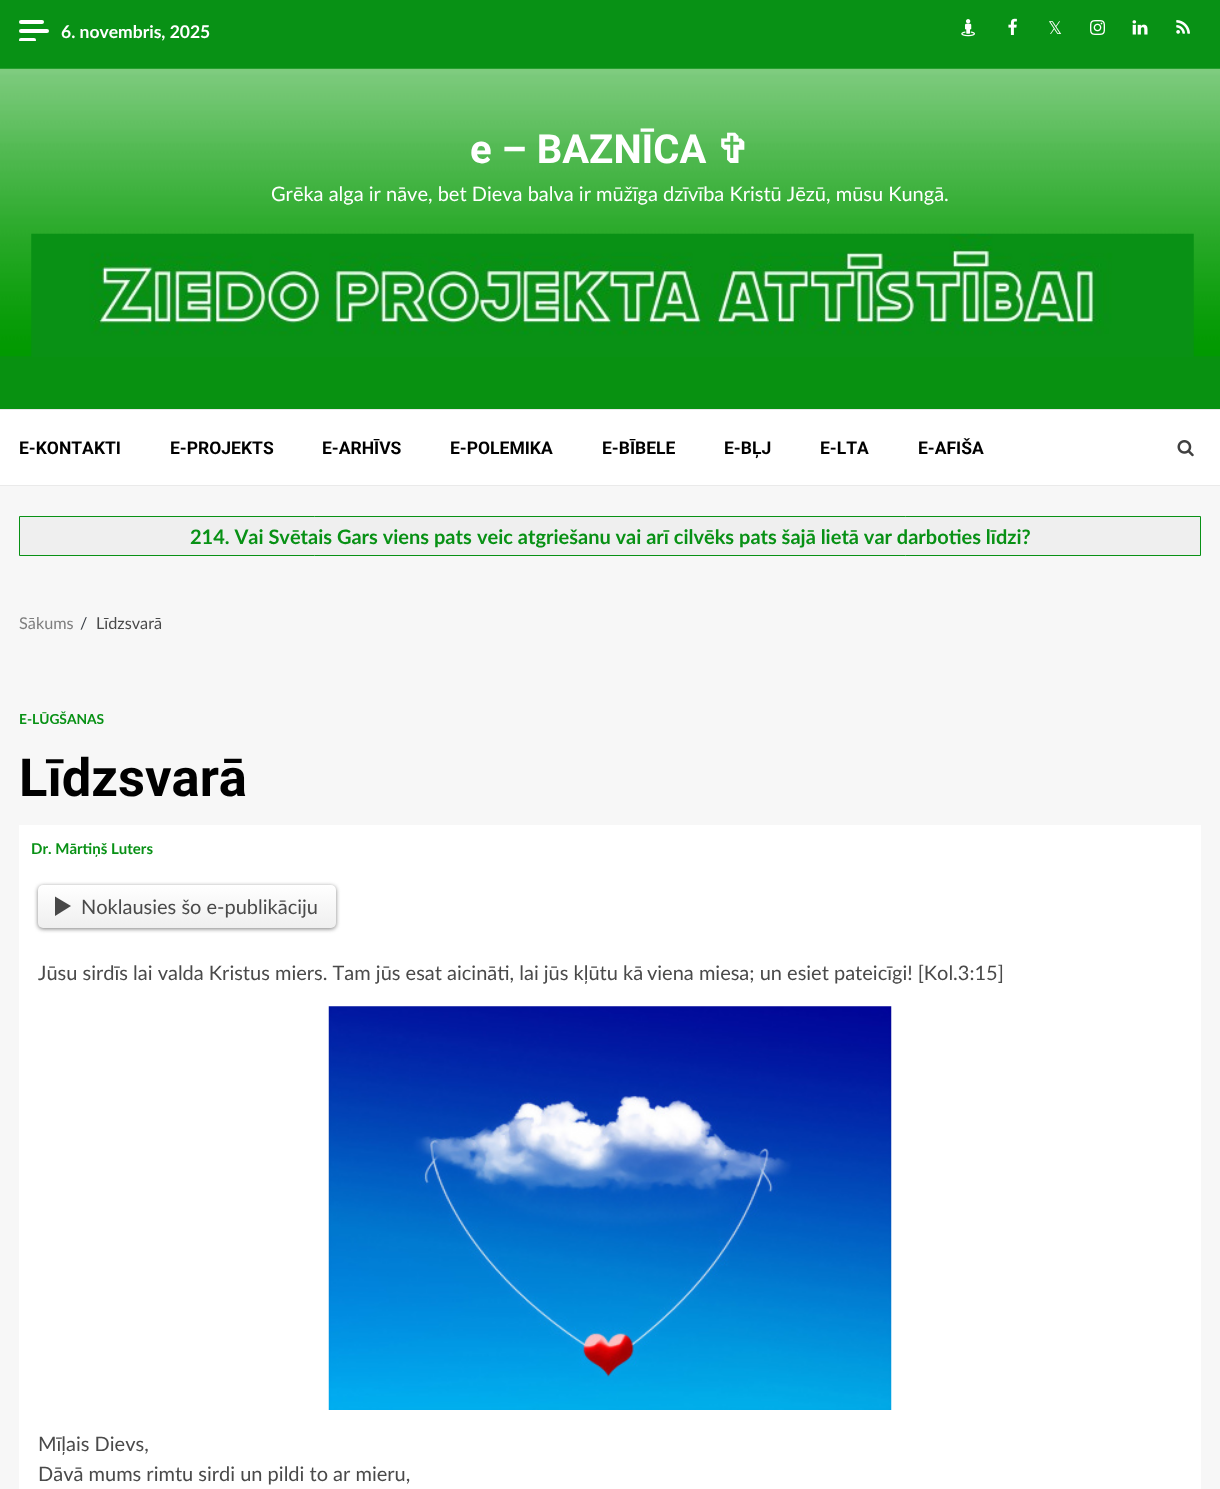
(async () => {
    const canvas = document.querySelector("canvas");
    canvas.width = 1220;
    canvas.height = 1489;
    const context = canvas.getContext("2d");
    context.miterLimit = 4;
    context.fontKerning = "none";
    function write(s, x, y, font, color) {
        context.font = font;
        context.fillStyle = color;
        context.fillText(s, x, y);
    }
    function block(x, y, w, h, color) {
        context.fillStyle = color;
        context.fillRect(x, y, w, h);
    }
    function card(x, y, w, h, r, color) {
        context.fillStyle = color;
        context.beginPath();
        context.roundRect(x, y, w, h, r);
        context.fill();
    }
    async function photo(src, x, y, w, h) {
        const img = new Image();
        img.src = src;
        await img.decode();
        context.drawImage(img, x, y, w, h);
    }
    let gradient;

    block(0, 0, 1220, 1489, "rgb(247, 247, 247)");
    block(0, 410, 1220, 75, "rgb(255, 255, 255)");
    block(0, 0, 1220, 69, "rgb(8, 145, 21)");
    card(19, 20, 25, 4, 2, "rgb(255, 255, 255)");
    card(19, 29, 30, 4, 2, "rgb(255, 255, 255)");
    context.save();
    context.beginPath();
    context.rect(19, 20, 30, 21);
    context.clip();
    card(19, 38, 17, 4, 2, "rgb(255, 255, 255)");
    context.restore();
    write("6. novembris, 2025", 61, 38, "bold 17.5px Lato", "rgb(255, 255, 255)");
    await photo("media/1.png", 961, 19, 14, 18);
    await photo("media/2.png", 1008, 18, 9, 17);
    write("𝕏", 1048, 34, "17.5px DejaVu Sans", "rgb(255, 255, 255)");
    await photo("media/3.png", 1090, 20, 15, 15);
    await photo("media/4.png", 1132, 20, 16, 15);
    await photo("media/5.png", 1176, 20, 14, 14);
    block(0, 356, 1220, 53, "rgb(8, 145, 17)");
    await photo("media/6.png", 0, 68, 1220, 289);
    write("e – BAZNĪCA", 470, 163, "bold 40px Roboto", "rgb(255, 255, 255)");
    write("✞", 716, 163, "bold 40px DejaVu Sans", "rgb(255, 255, 255)");
    write("Grēka alga ir nāve, bet Dieva balva ir mūžīga dzīvība Kristū Jēzū, mūsu Kungā.", 271, 201, "20px Lato", "rgb(255, 255, 255)");
    await photo("media/7.png", 31, 233, 1163, 124);
    block(0, 409, 1220, 1, "rgb(234, 234, 234)");
    block(0, 485, 1220, 1, "rgb(234, 234, 234)");
    write("E-KONTAKTI", 19, 454, "bold 17.5px Roboto", "rgb(0, 0, 0)");
    write("E-PROJEKTS", 170, 454, "bold 17.5px Roboto", "rgb(0, 0, 0)");
    write("E-ARHĪVS", 322, 454, "bold 17.5px Roboto", "rgb(0, 0, 0)");
    write("E-POLEMIKA", 450, 454, "bold 17.5px Roboto", "rgb(0, 0, 0)");
    write("E-BĪBELE", 602, 454, "bold 17.5px Roboto", "rgb(0, 0, 0)");
    write("E-BĻJ", 724, 454, "bold 17.5px Roboto", "rgb(0, 0, 0)");
    write("E-LTA", 820, 454, "bold 17.5px Roboto", "rgb(0, 0, 0)");
    write("E-AFIŠA", 918, 454, "bold 17.5px Roboto", "rgb(0, 0, 0)");
    await photo("media/8.png", 1177, 440, 17, 17);
    context.fillStyle = "rgb(239, 239, 239)";
    context.beginPath();
    context.rect(19.5, 516.5, 1181, 39);
    context.fill();
    context.strokeStyle = "rgb(8, 145, 21)";
    context.stroke();
    write("214. Vai Svētais Gars viens pats", 190, 544, "bold 20px Lato", "rgb(8, 145, 21)");
    write("veic atgriešanu vai arī cilvēks pats šajā lietā var darboties līdzi?", 477, 544, "bold 20px Lato", "rgb(8, 145, 21)");
    write("Sākums", 19, 629, "16.25px Lato", "rgb(126, 126, 126)");
    write("/", 80, 629, "16.25px Lato", "rgb(57, 62, 70)");
    write("Līdzsvarā", 96, 629, "16.25px Lato", "rgb(74, 74, 74)");
    write("E-LŪGŠANAS", 19, 724, "bold 13.75px Lato", "rgb(8, 145, 21)");
    write("Līdzsvarā", 19, 796, "bold 52.5px Roboto", "rgb(0, 0, 0)");
    block(19, 825, 1182, 664, "rgb(255, 255, 255)");
    write("Dr. Mārtiņš Luters", 31, 854, "bold 15px Lato", "rgb(8, 145, 21)");
    context.fillStyle = "rgb(128, 128, 128)";
    context.filter = "blur(2px)";
    context.beginPath();
    context.roundRect(38, 886, 298, 43, 5);
    context.fill();
    context.filter = "none";
    gradient = context.createLinearGradient(187, 885, 187, 928);
    gradient.addColorStop(0, "rgb(255, 255, 255)");
    gradient.addColorStop(1, "rgb(239, 239, 239)");
    context.fillStyle = gradient;
    context.beginPath();
    context.roundRect(38, 885, 298, 43, 5);
    context.fill();
    context.fillStyle = "rgb(72, 72, 72)";
    context.beginPath();
    context.moveTo(71, 906);
    context.lineTo(55, 916);
    context.lineTo(55, 896.5);
    context.closePath();
    context.fill();
    write("Noklausies šo e-publikāciju", 81, 914, "20px Lato", "rgb(74, 74, 74)");
    write("Jūsu sirdīs lai valda Kristus miers. Tam jūs esat aicināti, lai jūs kļūtu kā", 38, 980, "20px Lato", "rgb(74, 74, 74)");
    write("viena miesa; un esiet pateicīgi! [Kol.3:15]", 647, 980, "20px Lato", "rgb(74, 74, 74)");
    await photo("media/9.png", 328, 1006, 564, 404);
    write("Mīļais Dievs,", 38, 1451, "20px Lato", "rgb(74, 74, 74)");
    write("Dāvā mums rimtu sirdi un pildi to ar mieru,", 38, 1481, "20px Lato", "rgb(74, 74, 74)");
})();
